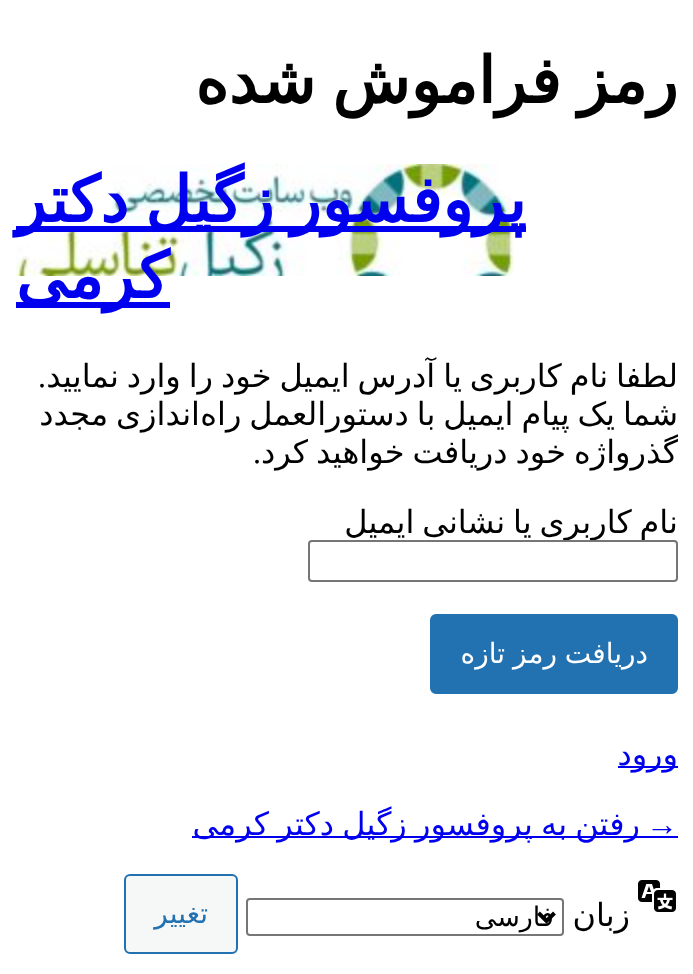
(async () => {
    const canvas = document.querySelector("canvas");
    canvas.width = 693;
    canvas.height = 974;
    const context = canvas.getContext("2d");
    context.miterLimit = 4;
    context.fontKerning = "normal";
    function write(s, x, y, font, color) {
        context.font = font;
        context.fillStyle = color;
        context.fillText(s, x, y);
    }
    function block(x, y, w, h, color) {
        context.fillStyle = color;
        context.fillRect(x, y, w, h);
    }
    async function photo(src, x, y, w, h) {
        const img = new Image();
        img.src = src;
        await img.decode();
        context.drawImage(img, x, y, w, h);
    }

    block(0, 0, 693, 974, "rgb(255, 255, 255)");
    context.wordSpacing = "-4px";
    context.direction = "rtl";
    write("رمز فراموش شده", 678, 103, "bold 64px DejaVu Sans", "rgb(0, 0, 0)");
    await photo("media/1.png", 16, 164, 498, 112);
    block(16, 226, 510, 6, "rgb(0, 0, 238)");
    write("پروفسور زگیل دکتر", 526, 222, "bold 64px DejaVu Sans", "rgb(0, 0, 238)");
    block(16, 302, 154, 6, "rgb(0, 0, 238)");
    context.wordSpacing = "0px";
    write("کرمی", 169, 298, "bold 64px DejaVu Sans", "rgb(0, 0, 238)");
    context.wordSpacing = "-2.25px";
    write("لطفا نام کاربری یا آدرس ایمیل خود را وارد نمایید", 678, 387, "32px DejaVu Sans", "rgb(0, 0, 0)");
    context.wordSpacing = "0px";
    write(".", 46, 387, "32px Liberation Serif", "rgb(0, 0, 0)");
    context.wordSpacing = "-2.25px";
    write("شما یک پیام ایمیل با دستورالعمل راه", 678, 425, "32px DejaVu Sans", "rgb(0, 0, 0)");
    write("اندازی مجدد", 200, 425, "32px DejaVu Sans", "rgb(0, 0, 0)");
    write("گذرواژه خود دریافت خواهید کرد", 678, 463, "32px DejaVu Sans", "rgb(0, 0, 0)");
    context.wordSpacing = "0px";
    write(".", 261, 463, "32px Liberation Serif", "rgb(0, 0, 0)");
    context.wordSpacing = "-2.25px";
    write("نام کاربری یا نشانی ایمیل", 678, 533, "32px DejaVu Sans", "rgb(0, 0, 0)");
    context.fillStyle = "rgb(255, 255, 255)";
    context.beginPath();
    context.roundRect(309, 541, 368, 40, 3);
    context.fill();
    context.strokeStyle = "rgb(118, 118, 118)";
    context.lineWidth = 2;
    context.stroke();
    context.fillStyle = "rgb(34, 113, 177)";
    context.beginPath();
    context.roundRect(431, 615, 246, 78, 5);
    context.fill();
    context.strokeStyle = "rgb(34, 113, 177)";
    context.stroke();
    context.wordSpacing = "-1px";
    write("دریافت رمز تازه", 648, 663, "28px DejaVu Sans", "rgb(255, 255, 255)");
    block(618, 766, 60, 2, "rgb(0, 0, 238)");
    context.wordSpacing = "0px";
    write("ورود", 678, 765, "32px DejaVu Sans", "rgb(0, 0, 238)");
    write("→", 678, 835, "32px Liberation Serif", "rgb(0, 0, 238)");
    block(192, 836, 486, 2, "rgb(0, 0, 238)");
    context.wordSpacing = "-2px";
    write("رفتن به پروفسور زگیل دکتر کرمی", 640, 835, "32px DejaVu Sans", "rgb(0, 0, 238)");
    await photo("media/2.png", 638, 880, 38, 32);
    context.wordSpacing = "0px";
    write("زبان", 630, 926, "32px DejaVu Sans", "rgb(0, 0, 0)");
    context.beginPath();
    context.roundRect(247, 899, 316, 36, 3);
    context.strokeStyle = "rgb(118, 118, 118)";
    context.stroke();
    context.beginPath();
    context.moveTo(538.5, 913);
    context.lineTo(546.5, 921);
    context.lineTo(554.5, 913);
    context.strokeStyle = "rgb(0, 0, 0)";
    context.lineWidth = 4;
    context.stroke();
    write("فارسی", 554, 926, "27px DejaVu Sans", "rgb(0, 0, 0)");
    context.fillStyle = "rgb(246, 247, 247)";
    context.beginPath();
    context.roundRect(125, 875, 112, 78, 5);
    context.fill();
    context.strokeStyle = "rgb(34, 113, 177)";
    context.lineWidth = 2;
    context.stroke();
    write("تغییر", 208, 923, "28px DejaVu Sans", "rgb(34, 113, 177)");
})();
